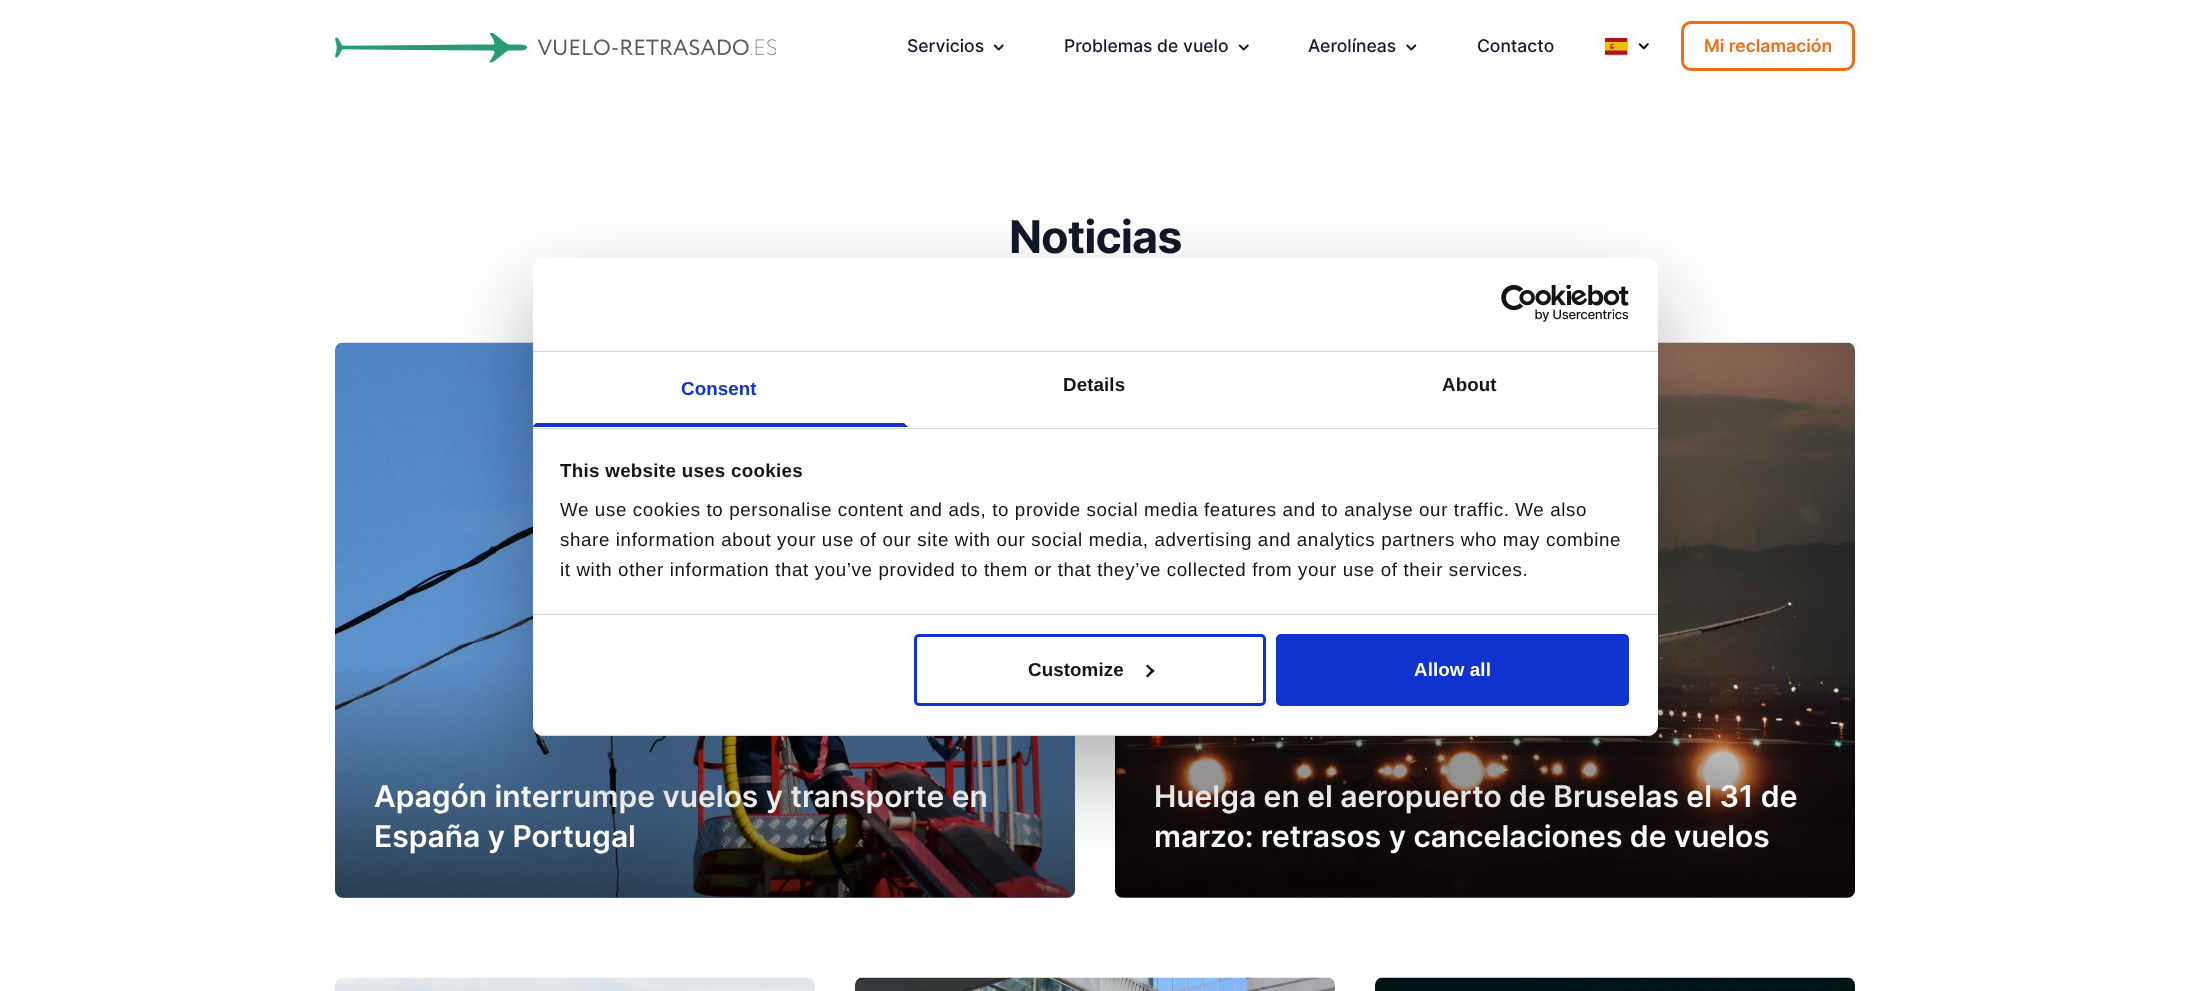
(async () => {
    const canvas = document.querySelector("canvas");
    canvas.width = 2188;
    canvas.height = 991;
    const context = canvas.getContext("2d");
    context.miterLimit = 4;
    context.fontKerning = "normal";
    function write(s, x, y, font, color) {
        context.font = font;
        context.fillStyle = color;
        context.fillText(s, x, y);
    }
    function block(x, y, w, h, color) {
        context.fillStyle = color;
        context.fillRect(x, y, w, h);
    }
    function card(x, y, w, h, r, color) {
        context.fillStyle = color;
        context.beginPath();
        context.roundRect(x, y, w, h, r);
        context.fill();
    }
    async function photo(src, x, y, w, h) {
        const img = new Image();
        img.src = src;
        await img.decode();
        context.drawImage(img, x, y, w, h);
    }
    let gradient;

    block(0, 0, 2188, 991, "rgb(255, 255, 255)");
    await photo("media/1.png", 335, 33, 441, 30);
    write("Servicios", 907, 52, "500 17.5px Inter", "rgb(17, 24, 39)");
    await photo("media/2.png", 993, 44, 11, 7);
    write("Problemas de vuelo", 1064, 52, "500 17.5px Inter", "rgb(17, 24, 39)");
    await photo("media/2.png", 1238, 44, 11, 7);
    write("Aerolíneas", 1308, 52, "500 17.5px Inter", "rgb(17, 24, 39)");
    await photo("media/3.png", 1406, 44, 11, 7);
    write("Contacto", 1477, 52, "500 17.5px Inter", "rgb(17, 24, 39)");
    await photo("media/4.png", 1603, 37, 26, 19);
    await photo("media/5.png", 1638, 43, 11, 7);
    context.beginPath();
    context.roundRect(1682.5, 22.5, 171, 47, 8.5);
    context.strokeStyle = "rgb(243, 107, 18)";
    context.lineWidth = 3;
    context.stroke();
    write("Mi reclamación", 1704, 52, "600 17.5px Inter", "rgb(243, 107, 18)");
    context.letterSpacing = "-1px";
    write("Noticias", 1009, 253, "bold 45px Inter", "rgb(17, 24, 39)");
    await photo("media/6.png", 335, 342, 740, 556);
    gradient = context.createLinearGradient(705, 898, 705, 658);
    gradient.addColorStop(0, "rgba(0, 0, 0, 0.6)");
    gradient.addColorStop(1, "rgba(0, 0, 0, 0)");
    context.fillStyle = gradient;
    context.beginPath();
    context.roundRect(335, 658, 740, 240, [0, 0, 8, 8]);
    context.fill();
    context.letterSpacing = "0px";
    write("Apagón interrumpe vuelos y transporte en", 374, 807, "600 30px Inter", "rgb(255, 255, 255)");
    write("España y Portugal", 374, 847, "600 30px Inter", "rgb(255, 255, 255)");
    await photo("media/7.png", 1115, 342, 740, 556);
    gradient = context.createLinearGradient(1485, 898, 1485, 658);
    gradient.addColorStop(0, "rgba(0, 0, 0, 0.6)");
    gradient.addColorStop(1, "rgba(0, 0, 0, 0)");
    context.fillStyle = gradient;
    context.beginPath();
    context.roundRect(1115, 658, 740, 240, [0, 0, 8, 8]);
    context.fill();
    write("Huelga en el aeropuerto de Bruselas el 31 de", 1154, 807, "600 30px Inter", "rgb(255, 255, 255)");
    write("marzo: retrasos y cancelaciones de vuelos", 1154, 847, "600 30px Inter", "rgb(255, 255, 255)");
    await photo("media/8.png", 335, 977, 480, 14);
    await photo("media/9.png", 855, 977, 480, 14);
    await photo("media/10.png", 1375, 977, 480, 14);
    context.fillStyle = "rgba(0, 0, 0, 0.3)";
    context.filter = "blur(42.5px)";
    context.beginPath();
    context.roundRect(533, 298, 1125, 478, 10);
    context.fill();
    context.filter = "none";
    card(533, 258, 1125, 478, 10, "rgb(255, 255, 255)");
    block(533, 351, 1125, 1, "rgb(214, 214, 214)");
    await photo("media/11.png", 1501, 285, 128, 37);
    block(533, 428, 1125, 1, "rgb(214, 214, 214)");
    context.fillStyle = "rgb(16, 50, 207)";
    context.beginPath();
    context.moveTo(908, 427);
    context.lineTo(533, 427);
    context.lineTo(533, 426);
    context.lineTo(536, 423);
    context.lineTo(904, 423);
    context.closePath();
    context.fill();
    context.letterSpacing = "0.1px";
    write("Consent", 681, 395, "bold 18.75px Liberation Sans", "rgb(16, 50, 207)");
    write("Details", 1063, 391, "bold 18.75px Liberation Sans", "rgb(20, 20, 20)");
    write("About", 1442, 391, "bold 18.75px Liberation Sans", "rgb(20, 20, 20)");
    block(533, 614, 1125, 1, "rgb(214, 214, 214)");
    context.letterSpacing = "0.3px";
    write("This website uses cookies", 560, 477, "bold 18.75px Liberation Sans", "rgb(20, 20, 20)");
    context.letterSpacing = "0.62px";
    write("We use cookies to personalise content and ads, to provide social media features and to analyse our traffic. We also", 560, 516, "18.75px Liberation Sans", "rgb(20, 20, 20)");
    write("share information about your use of our site with our social media, advertising and analytics partners who may combine", 560, 546, "18.75px Liberation Sans", "rgb(20, 20, 20)");
    write("it with other information that you’ve provided to them or that they’ve collected from your use of their services.", 560, 576, "18.75px Liberation Sans", "rgb(20, 20, 20)");
    context.save();
    context.beginPath();
    context.roundRect(533, 258, 1125, 478, 10);
    context.clip();
    block(533, 735, 1125, 1, "rgb(214, 214, 214)");
    context.restore();
    context.beginPath();
    context.roundRect(915.5, 635.5, 349, 69, 3.5);
    context.strokeStyle = "rgb(16, 50, 207)";
    context.stroke();
    context.letterSpacing = "0.1px";
    write("Customize", 1028, 676, "bold 18.75px Liberation Sans", "rgb(20, 20, 20)");
    context.beginPath();
    context.moveTo(1147.5, 664.5);
    context.lineTo(1154.5, 671);
    context.lineTo(1152.5, 672.5);
    context.lineTo(1146, 666);
    context.closePath();
    context.fill();
    context.beginPath();
    context.moveTo(1152.5, 669);
    context.lineTo(1154.5, 671);
    context.lineTo(1147.5, 677.5);
    context.lineTo(1146, 676);
    context.closePath();
    context.fill();
    context.fillStyle = "rgb(16, 50, 207)";
    context.beginPath();
    context.roundRect(1277.5, 635.5, 350, 69, 3.5);
    context.fill();
    context.stroke();
    write("Allow all", 1414, 676, "bold 18.75px Liberation Sans", "rgb(255, 255, 255)");
})();
